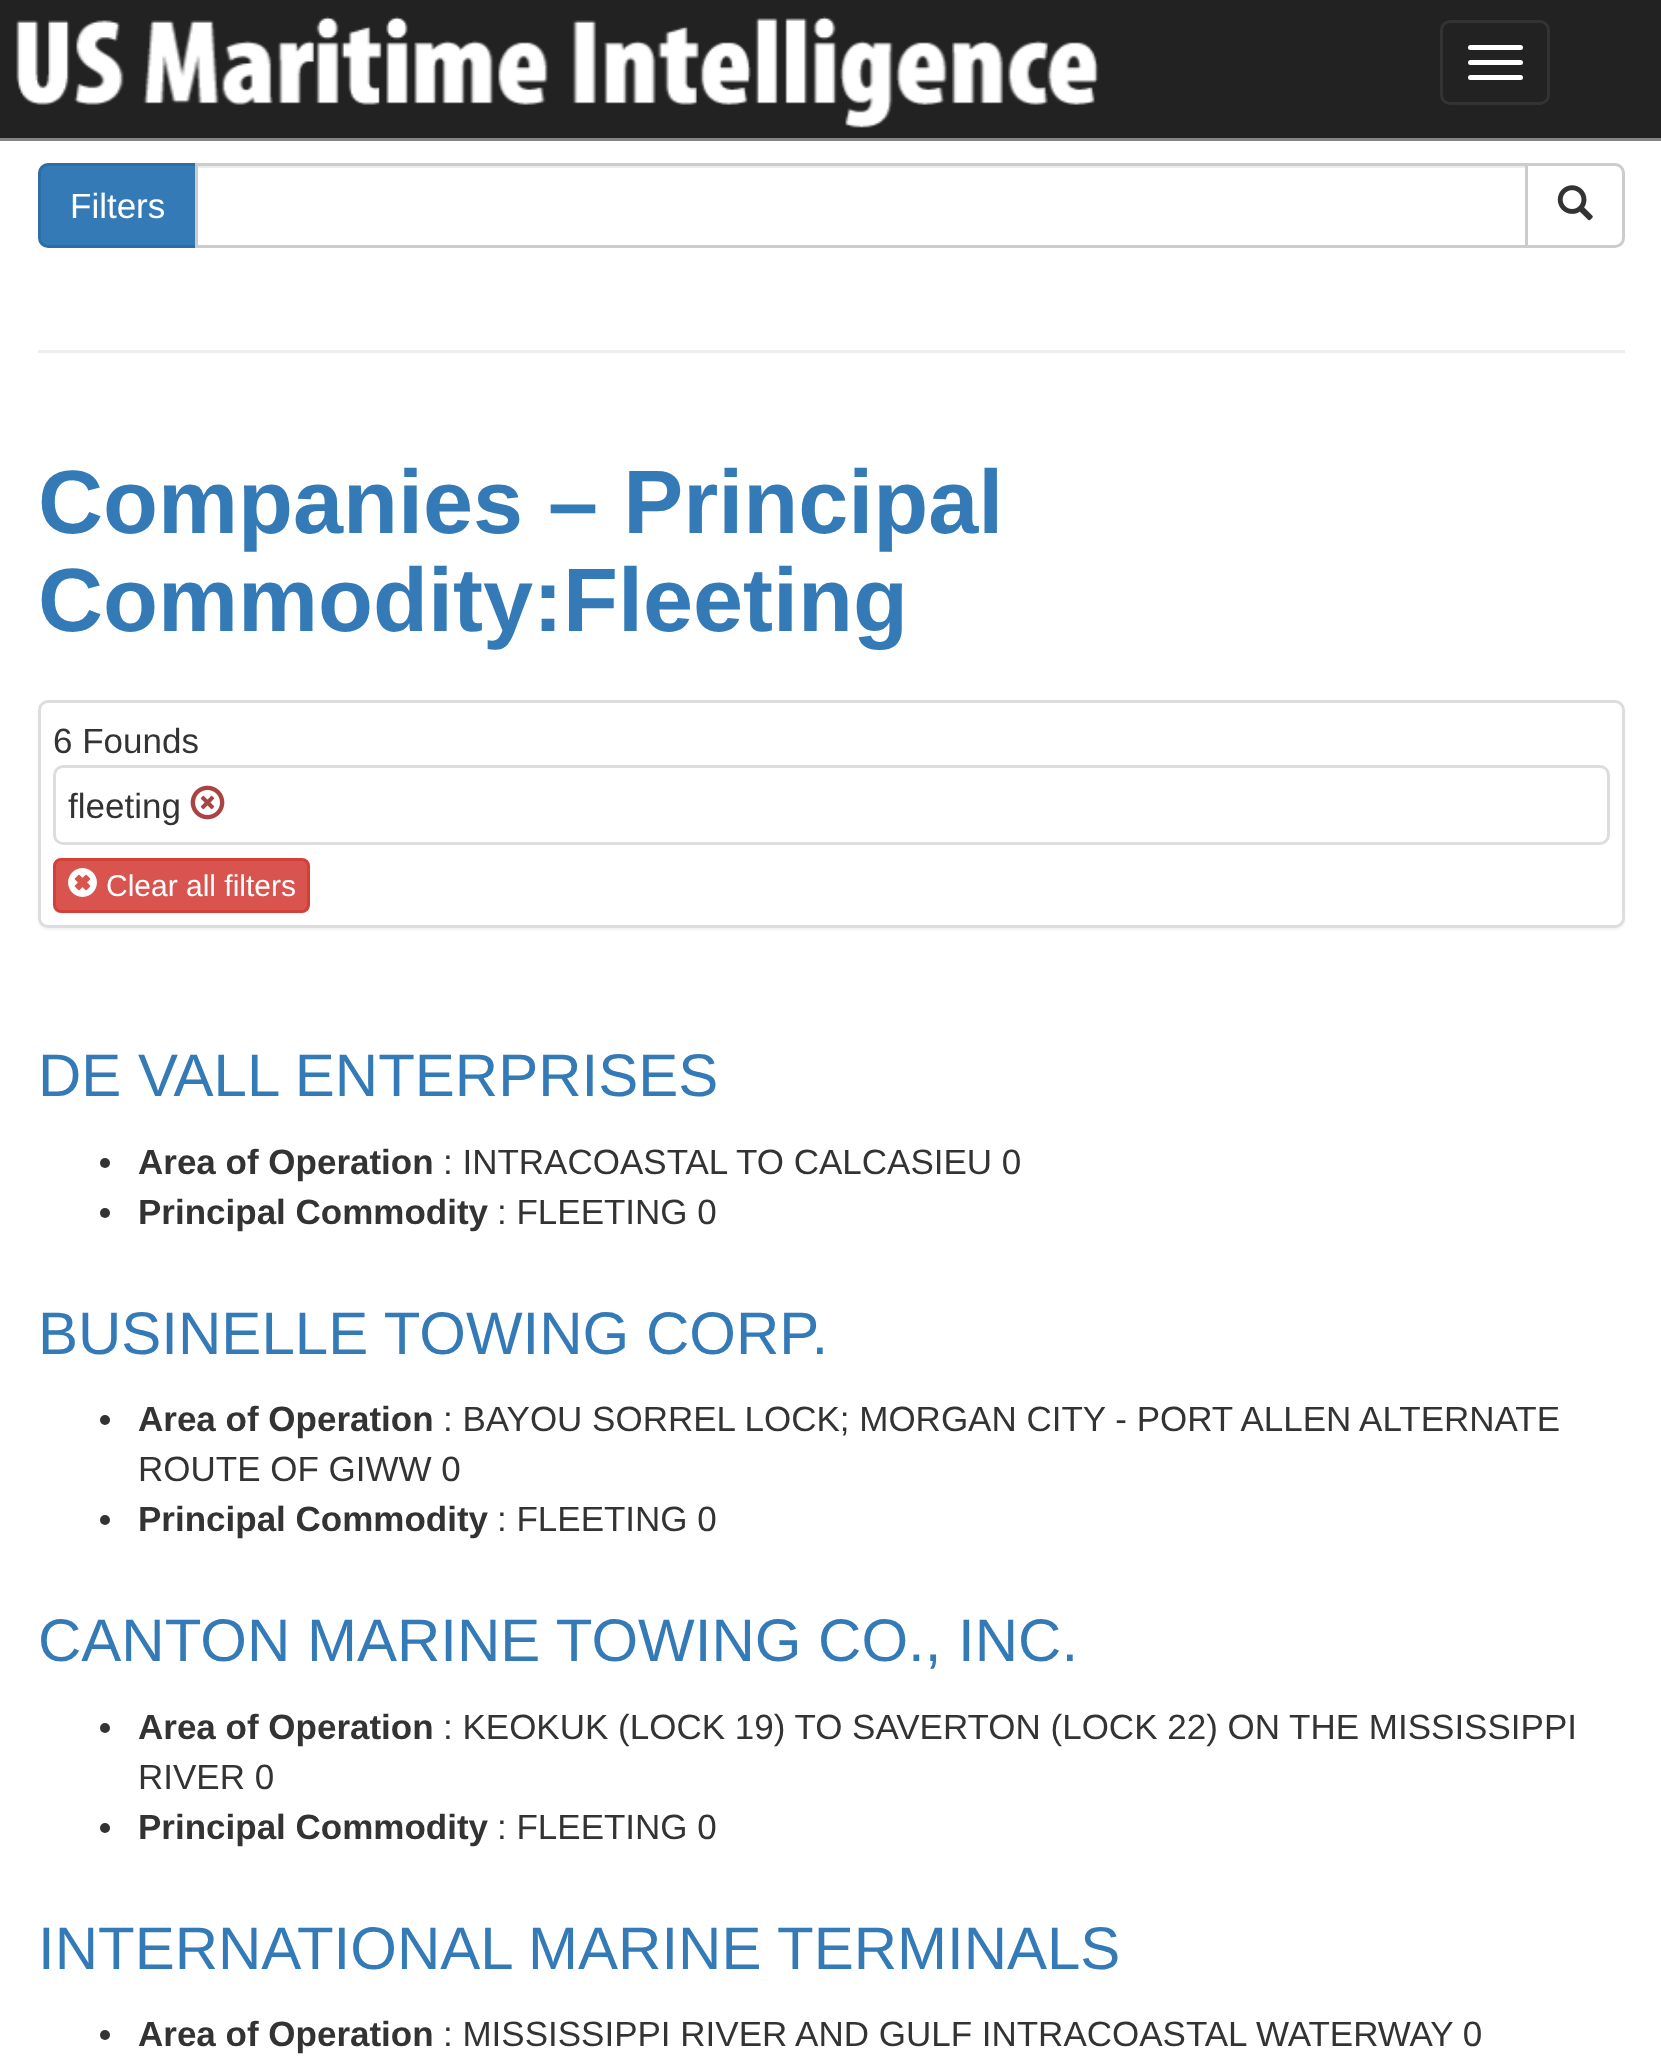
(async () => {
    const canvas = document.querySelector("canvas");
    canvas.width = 1661;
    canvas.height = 2069;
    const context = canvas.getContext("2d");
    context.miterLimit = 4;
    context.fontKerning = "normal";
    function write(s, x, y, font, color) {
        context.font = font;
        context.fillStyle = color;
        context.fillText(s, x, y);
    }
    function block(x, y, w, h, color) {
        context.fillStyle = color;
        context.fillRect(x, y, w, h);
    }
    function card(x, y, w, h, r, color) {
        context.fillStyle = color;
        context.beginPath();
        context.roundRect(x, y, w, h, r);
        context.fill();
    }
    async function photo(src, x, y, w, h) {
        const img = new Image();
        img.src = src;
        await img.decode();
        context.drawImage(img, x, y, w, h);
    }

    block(0, 0, 1661, 2069, "rgb(255, 255, 255)");
    block(0, 0, 1661, 138, "rgb(34, 34, 34)");
    block(0, 138, 1661, 3, "rgb(132, 132, 132)");
    await photo("media/1.png", 16, 16, 1083, 112);
    context.beginPath();
    context.roundRect(1441.5, 21.5, 107, 82, 8.5);
    context.strokeStyle = "rgb(51, 51, 51)";
    context.lineWidth = 3;
    context.stroke();
    card(1468, 45, 55, 5, 2.5, "rgb(255, 255, 255)");
    card(1468, 60, 55, 5, 2.5, "rgb(255, 255, 255)");
    card(1468, 75, 55, 5, 2.5, "rgb(255, 255, 255)");
    context.fillStyle = "rgb(51, 122, 183)";
    context.beginPath();
    context.roundRect(39.5, 164.5, 157, 82, [8.5, 0, 0, 8.5]);
    context.fill();
    context.strokeStyle = "rgb(46, 109, 164)";
    context.stroke();
    write("Filters", 70, 218, "35px Liberation Sans", "rgb(255, 255, 255)");
    block(198, 166, 1327, 2, "rgb(236, 236, 236)");
    context.strokeStyle = "rgb(204, 204, 204)";
    context.strokeRect(196.5, 164.5, 1330, 82);
    context.fillStyle = "rgb(255, 255, 255)";
    context.beginPath();
    context.roundRect(1526.5, 164.5, 97, 82, [0, 8.5, 8.5, 0]);
    context.fill();
    context.stroke();
    await photo("media/2.png", 1557, 185, 36, 36);
    block(38, 350, 1587, 3, "rgb(238, 238, 238)");
    write("Companies – Principal", 38, 533, "bold 90px Liberation Sans", "rgb(51, 122, 183)");
    write("Commodity:Fleeting", 38, 631, "bold 90px Liberation Sans", "rgb(51, 122, 183)");
    context.fillStyle = "rgba(0, 0, 0, 0.05)";
    context.filter = "blur(1px)";
    context.beginPath();
    context.roundRect(38, 703, 1587, 227, 10);
    context.fill();
    context.filter = "none";
    context.fillStyle = "rgb(255, 255, 255)";
    context.beginPath();
    context.roundRect(39.5, 701.5, 1584, 225, 8.5);
    context.fill();
    context.strokeStyle = "rgb(221, 221, 221)";
    context.stroke();
    write("6 Founds", 53, 753, "35px Liberation Sans", "rgb(51, 51, 51)");
    context.beginPath();
    context.roundRect(54.5, 766.5, 1554, 77, 8.5);
    context.stroke();
    write("fleeting", 68, 818, "35px Liberation Sans", "rgb(51, 51, 51)");
    await photo("media/3.png", 190, 785, 35, 35);
    context.fillStyle = "rgb(217, 83, 79)";
    context.beginPath();
    context.roundRect(54.5, 859.5, 254, 52, 6.5);
    context.fill();
    context.strokeStyle = "rgb(212, 63, 58)";
    context.stroke();
    await photo("media/4.png", 68, 868, 29, 29);
    write("Clear all filters", 106, 896, "30px Liberation Sans", "rgb(255, 255, 255)");
    write("DE VALL ENTERPRISES", 38, 1096, "60px Liberation Sans", "rgb(51, 122, 183)");
    context.fillStyle = "rgb(51, 51, 51)";
    context.beginPath();
    context.arc(105, 1163, 5, 0, Math.PI * 2);
    context.fill();
    write("Area of Operation", 138, 1174, "bold 35px Liberation Sans", "rgb(51, 51, 51)");
    write(": INTRACOASTAL TO CALCASIEU 0", 443, 1174, "35px Liberation Sans", "rgb(51, 51, 51)");
    context.beginPath();
    context.arc(105, 1213, 5, 0, Math.PI * 2);
    context.fill();
    write("Principal Commodity", 138, 1224, "bold 35px Liberation Sans", "rgb(51, 51, 51)");
    write(": FLEETING 0", 497, 1224, "35px Liberation Sans", "rgb(51, 51, 51)");
    write("BUSINELLE TOWING CORP.", 38, 1354, "60px Liberation Sans", "rgb(51, 122, 183)");
    context.fillStyle = "rgb(51, 51, 51)";
    context.beginPath();
    context.arc(105, 1420, 5, 0, Math.PI * 2);
    context.fill();
    write("Area of Operation", 138, 1431, "bold 35px Liberation Sans", "rgb(51, 51, 51)");
    write(": BAYOU SORREL LOCK; MORGAN CITY - PORT ALLEN ALTERNATE", 443, 1431, "35px Liberation Sans", "rgb(51, 51, 51)");
    write("ROUTE OF GIWW 0", 138, 1481, "35px Liberation Sans", "rgb(51, 51, 51)");
    context.beginPath();
    context.arc(105, 1520, 5, 0, Math.PI * 2);
    context.fill();
    write("Principal Commodity", 138, 1531, "bold 35px Liberation Sans", "rgb(51, 51, 51)");
    write(": FLEETING 0", 497, 1531, "35px Liberation Sans", "rgb(51, 51, 51)");
    write("CANTON MARINE TOWING CO., INC.", 38, 1661, "60px Liberation Sans", "rgb(51, 122, 183)");
    context.fillStyle = "rgb(51, 51, 51)";
    context.beginPath();
    context.arc(105, 1728, 5, 0, Math.PI * 2);
    context.fill();
    write("Area of Operation", 138, 1739, "bold 35px Liberation Sans", "rgb(51, 51, 51)");
    write(": KEOKUK (LOCK 19) TO SAVERTON (LOCK 22) ON THE MISSISSIPPI", 443, 1739, "35px Liberation Sans", "rgb(51, 51, 51)");
    write("RIVER 0", 138, 1789, "35px Liberation Sans", "rgb(51, 51, 51)");
    context.beginPath();
    context.arc(105, 1828, 5, 0, Math.PI * 2);
    context.fill();
    write("Principal Commodity", 138, 1839, "bold 35px Liberation Sans", "rgb(51, 51, 51)");
    write(": FLEETING 0", 497, 1839, "35px Liberation Sans", "rgb(51, 51, 51)");
    write("INTERNATIONAL MARINE TERMINALS", 38, 1969, "60px Liberation Sans", "rgb(51, 122, 183)");
    context.fillStyle = "rgb(51, 51, 51)";
    context.beginPath();
    context.arc(105, 2035, 5, 0, Math.PI * 2);
    context.fill();
    write("Area of Operation", 138, 2046, "bold 35px Liberation Sans", "rgb(51, 51, 51)");
    write(": MISSISSIPPI RIVER AND GULF INTRACOASTAL WATERWAY 0", 443, 2046, "35px Liberation Sans", "rgb(51, 51, 51)");
})();
